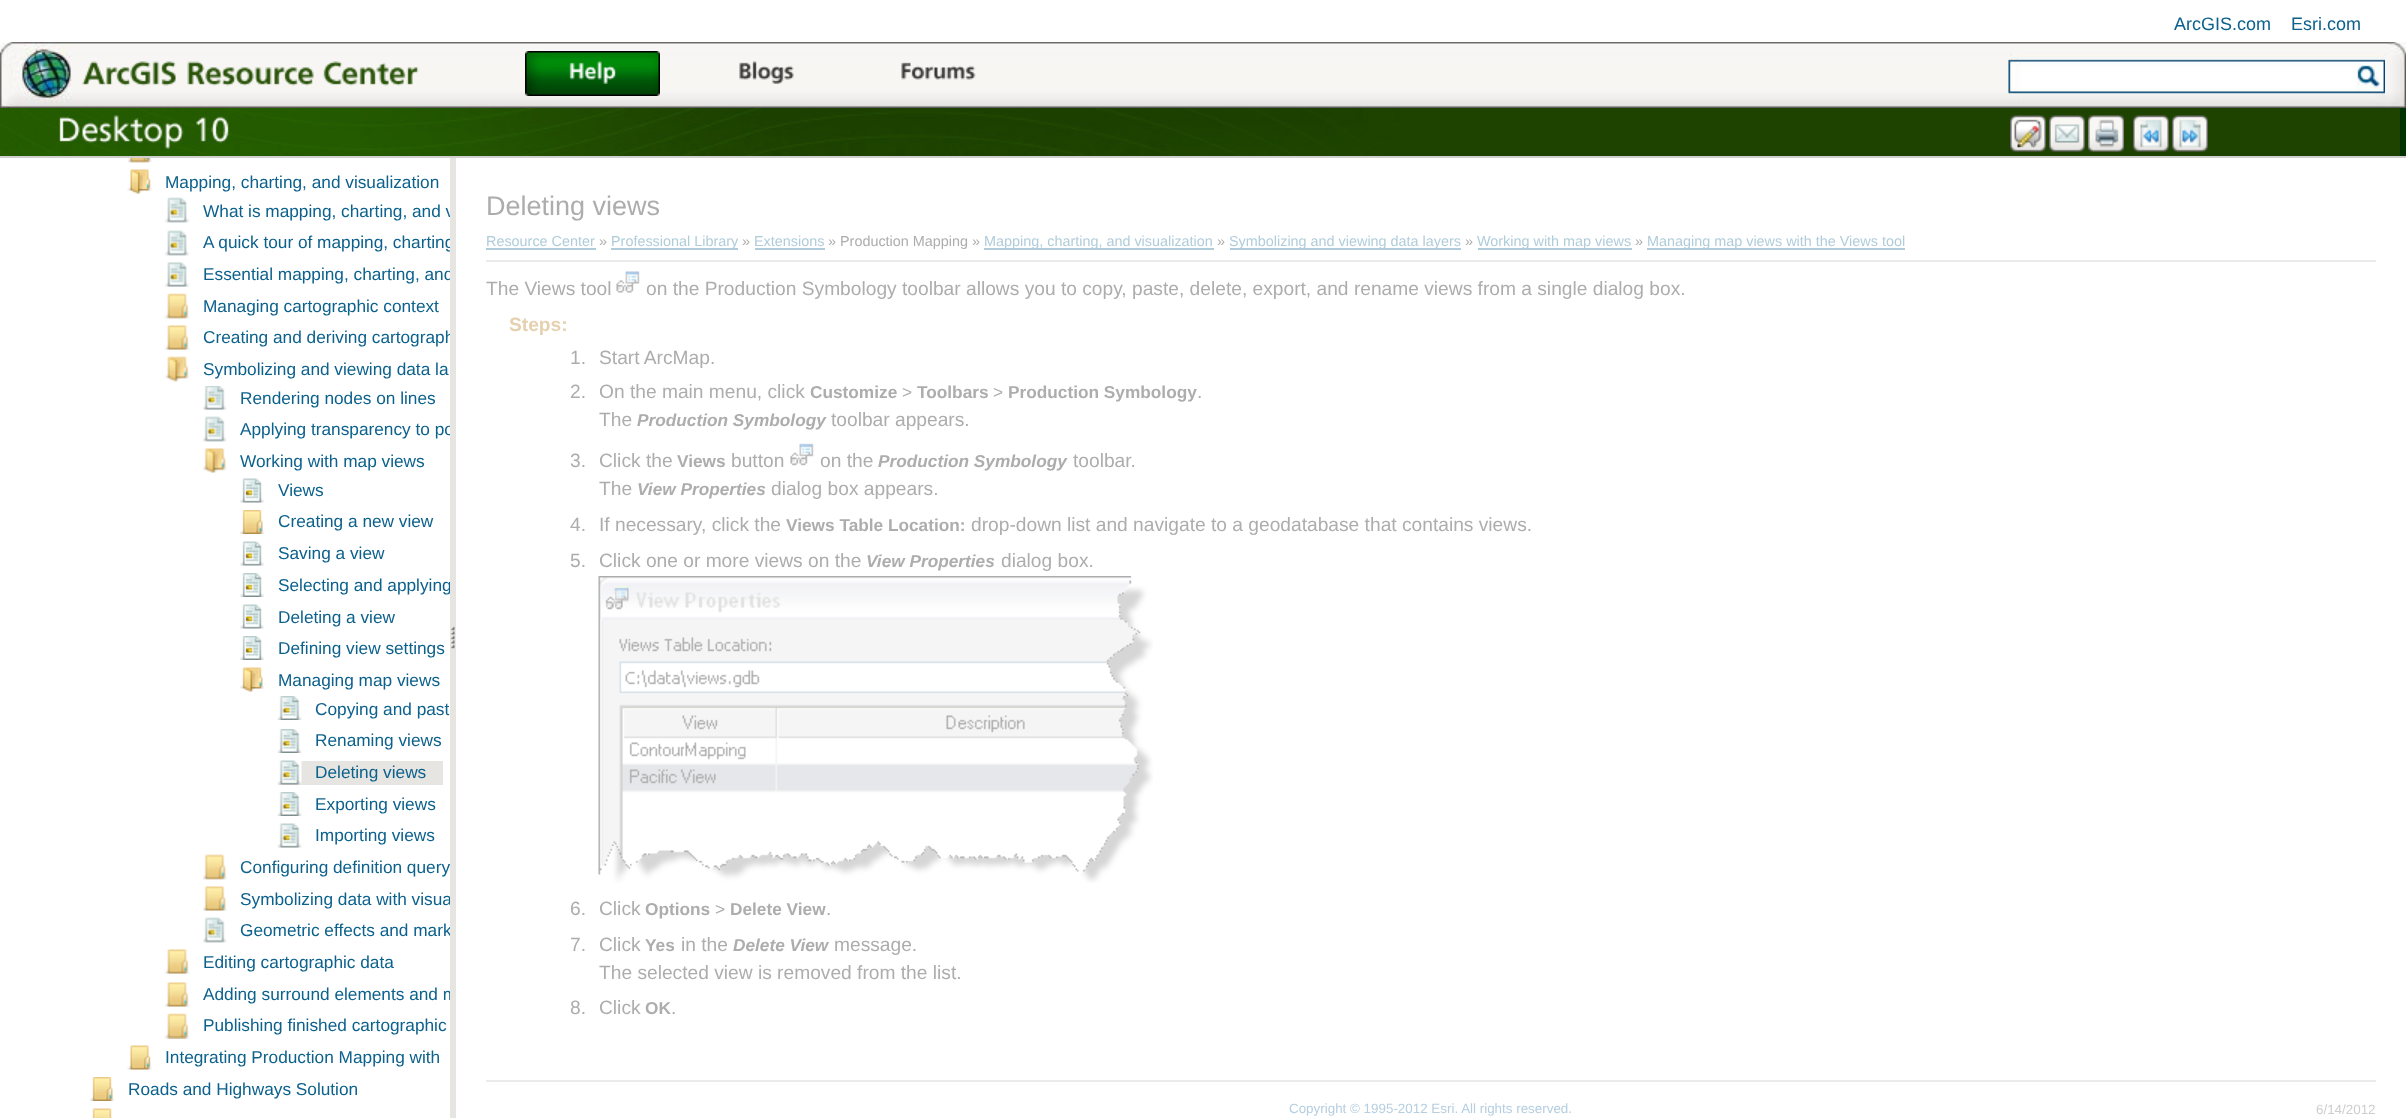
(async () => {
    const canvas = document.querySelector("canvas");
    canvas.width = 2406;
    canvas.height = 1118;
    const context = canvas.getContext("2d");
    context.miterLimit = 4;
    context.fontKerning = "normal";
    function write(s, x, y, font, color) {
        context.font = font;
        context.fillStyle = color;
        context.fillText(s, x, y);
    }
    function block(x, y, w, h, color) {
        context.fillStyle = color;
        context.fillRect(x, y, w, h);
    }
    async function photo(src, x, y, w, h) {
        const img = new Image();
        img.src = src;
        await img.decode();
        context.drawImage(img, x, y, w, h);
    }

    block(0, 0, 2406, 1118, "rgb(255, 255, 255)");
    await photo("media/1.png", 1044, 42, 1362, 66);
    write("ArcGIS.com", 2174, 30, "18px Liberation Sans", "rgb(12, 97, 141)");
    write("Esri.com", 2291, 30, "18px Liberation Sans", "rgb(12, 97, 141)");
    await photo("media/2.png", 0, 42, 1044, 66);
    await photo("media/3.png", 82, 61, 94, 25);
    await photo("media/4.png", 187, 61, 127, 25);
    await photo("media/5.png", 323, 61, 96, 25);
    await photo("media/6.png", 525, 51, 135, 45);
    await photo("media/7.png", 569, 61, 47, 23);
    await photo("media/8.png", 739, 61, 55, 23);
    await photo("media/9.png", 901, 62, 75, 18);
    await photo("media/10.png", 2008, 54, 377, 45);
    block(2400, 108, 6, 48, "rgb(0, 50, 1)");
    await photo("media/11.png", 0, 108, 2400, 48);
    await photo("media/12.png", 2010, 115, 36, 37);
    await photo("media/13.png", 2049, 115, 36, 37);
    await photo("media/14.png", 2088, 115, 36, 37);
    await photo("media/15.png", 2133, 115, 36, 37);
    await photo("media/16.png", 2172, 115, 36, 37);
    block(0, 156, 2406, 2, "rgb(207, 207, 207)");
    await photo("media/17.png", 128, 158, 24, 5);
    await photo("media/18.png", 127, 169, 25, 25);
    write("Mapping, charting, and visualization", 165, 188, "17.25px Liberation Sans", "rgb(12, 97, 141)");
    await photo("media/19.png", 164, 197, 26, 26);
    write("What is mapping, charting, and v", 203, 217, "17.25px Liberation Sans", "rgb(12, 97, 141)");
    await photo("media/19.png", 164, 230, 26, 26);
    write("A quick tour of mapping, charting", 203, 248, "17.25px Liberation Sans", "rgb(12, 97, 141)");
    await photo("media/20.png", 164, 262, 26, 25);
    write("Essential mapping, charting, and", 203, 280, "17.25px Liberation Sans", "rgb(12, 97, 141)");
    await photo("media/21.png", 164, 293, 26, 26);
    write("Managing cartographic context", 203, 312, "17.25px Liberation Sans", "rgb(12, 97, 141)");
    await photo("media/22.png", 164, 325, 26, 25);
    write("Creating and deriving cartograph", 203, 343, "17.25px Liberation Sans", "rgb(12, 97, 141)");
    await photo("media/23.png", 164, 356, 26, 26);
    write("Symbolizing and viewing data la", 203, 375, "17.25px Liberation Sans", "rgb(12, 97, 141)");
    await photo("media/24.png", 203, 386, 24, 24);
    write("Rendering nodes on lines", 240, 404, "17.25px Liberation Sans", "rgb(12, 97, 141)");
    await photo("media/25.png", 203, 416, 24, 26);
    write("Applying transparency to po", 240, 435, "17.25px Liberation Sans", "rgb(12, 97, 141)");
    await photo("media/26.png", 203, 448, 24, 25);
    write("Working with map views", 240, 467, "17.25px Liberation Sans", "rgb(12, 97, 141)");
    await photo("media/27.png", 240, 478, 24, 25);
    write("Views", 278, 496, "17.25px Liberation Sans", "rgb(12, 97, 141)");
    await photo("media/28.png", 240, 510, 24, 24);
    write("Creating a new view", 278, 527, "17.25px Liberation Sans", "rgb(12, 97, 141)");
    await photo("media/27.png", 240, 541, 24, 25);
    write("Saving a view", 278, 559, "17.25px Liberation Sans", "rgb(12, 97, 141)");
    await photo("media/29.png", 240, 573, 24, 24);
    write("Selecting and applying", 278, 591, "17.25px Liberation Sans", "rgb(12, 97, 141)");
    await photo("media/27.png", 240, 604, 24, 25);
    write("Deleting a view", 278, 623, "17.25px Liberation Sans", "rgb(12, 97, 141)");
    await photo("media/29.png", 240, 636, 24, 24);
    write("Defining view settings", 278, 654, "17.25px Liberation Sans", "rgb(12, 97, 141)");
    await photo("media/30.png", 240, 667, 24, 25);
    write("Managing map views", 278, 686, "17.25px Liberation Sans", "rgb(12, 97, 141)");
    await photo("media/31.png", 277, 696, 25, 24);
    write("Copying and past", 315, 715, "17.25px Liberation Sans", "rgb(12, 97, 141)");
    await photo("media/31.png", 277, 729, 25, 24);
    write("Renaming views", 315, 746, "17.25px Liberation Sans", "rgb(12, 97, 141)");
    block(278, 761, 165, 24, "rgb(230, 229, 226)");
    await photo("media/32.png", 277, 760, 25, 25);
    write("Deleting views", 315, 778, "17.25px Liberation Sans", "rgb(12, 97, 141)");
    await photo("media/31.png", 277, 792, 25, 24);
    write("Exporting views", 315, 810, "17.25px Liberation Sans", "rgb(12, 97, 141)");
    await photo("media/33.png", 277, 823, 25, 25);
    write("Importing views", 315, 841, "17.25px Liberation Sans", "rgb(12, 97, 141)");
    await photo("media/34.png", 203, 854, 24, 26);
    write("Configuring definition query", 240, 873, "17.25px Liberation Sans", "rgb(12, 97, 141)");
    await photo("media/35.png", 203, 886, 24, 25);
    write("Symbolizing data with visua", 240, 905, "17.25px Liberation Sans", "rgb(12, 97, 141)");
    await photo("media/25.png", 203, 917, 24, 26);
    write("Geometric effects and mark", 240, 936, "17.25px Liberation Sans", "rgb(12, 97, 141)");
    await photo("media/22.png", 164, 949, 26, 25);
    write("Editing cartographic data", 203, 968, "17.25px Liberation Sans", "rgb(12, 97, 141)");
    await photo("media/22.png", 164, 982, 26, 25);
    write("Adding surround elements and m", 203, 1000, "17.25px Liberation Sans", "rgb(12, 97, 141)");
    await photo("media/36.png", 164, 1013, 26, 26);
    write("Publishing finished cartographic", 203, 1031, "17.25px Liberation Sans", "rgb(12, 97, 141)");
    await photo("media/37.png", 127, 1045, 25, 25);
    write("Integrating Production Mapping with", 165, 1063, "17.25px Liberation Sans", "rgb(12, 97, 141)");
    await photo("media/28.png", 90, 1077, 24, 24);
    write("Roads and Highways Solution", 128, 1095, "17.25px Liberation Sans", "rgb(12, 97, 141)");
    await photo("media/38.png", 92, 1108, 20, 10);
    block(450, 158, 6, 960, "rgb(230, 229, 226)");
    await photo("media/39.png", 451, 626, 4, 23);
    block(486, 260, 1890, 2, "rgb(235, 236, 233)");
    write("Deleting views", 486, 215, "27px Liberation Sans", "rgb(173, 173, 173)");
    write("Resource Center", 486, 246, "14.4px Liberation Sans", "rgb(176, 204, 218)");
    block(486, 248, 110, 2, "rgb(176, 204, 218)");
    write("»", 599, 246, "14.4px Liberation Sans", "rgb(173, 173, 173)");
    block(611, 248, 127, 2, "rgb(176, 204, 218)");
    write("Professional Library", 611, 246, "14.4px Liberation Sans", "rgb(176, 204, 218)");
    write("»", 742, 246, "14.4px Liberation Sans", "rgb(173, 173, 173)");
    write("Extensions", 754, 246, "14.4px Liberation Sans", "rgb(176, 204, 218)");
    block(755, 248, 70, 2, "rgb(176, 204, 218)");
    write("» Production Mapping »", 828, 246, "14.4px Liberation Sans", "rgb(173, 173, 173)");
    block(984, 248, 230, 2, "rgb(176, 204, 218)");
    write("Mapping, charting, and visualization", 984, 246, "14.4px Liberation Sans", "rgb(176, 204, 218)");
    write("»", 1217, 246, "14.4px Liberation Sans", "rgb(173, 173, 173)");
    block(1230, 248, 231, 2, "rgb(176, 204, 218)");
    write("Symbolizing and viewing data layers", 1229, 246, "14.4px Liberation Sans", "rgb(176, 204, 218)");
    write("»", 1465, 246, "14.4px Liberation Sans", "rgb(173, 173, 173)");
    block(1478, 248, 154, 2, "rgb(176, 204, 218)");
    write("Working with map views", 1477, 246, "14.4px Liberation Sans", "rgb(176, 204, 218)");
    write("»", 1635, 246, "14.4px Liberation Sans", "rgb(173, 173, 173)");
    block(1647, 248, 258, 2, "rgb(176, 204, 218)");
    write("Managing map views with the Views tool", 1647, 246, "14.4px Liberation Sans", "rgb(176, 204, 218)");
    write("The Views tool", 486, 295, "19.2px Liberation Sans", "rgb(173, 173, 173)");
    await photo("media/40.png", 616, 271, 24, 22);
    write("on the Production Symbology toolbar allows you to copy, paste, delete, export, and rename views from a single dialog box.", 646, 295, "19.2px Liberation Sans", "rgb(173, 173, 173)");
    write("Steps:", 509, 331, "bold 19.2px Liberation Sans", "rgb(229, 209, 175)");
    write("1.", 570, 364, "19.2px Liberation Sans", "rgb(173, 173, 173)");
    write("Start ArcMap.", 599, 364, "19.2px Liberation Sans", "rgb(173, 173, 173)");
    write("2.", 570, 398, "19.2px Liberation Sans", "rgb(173, 173, 173)");
    write("On the main menu, click", 599, 398, "19.2px Liberation Sans", "rgb(173, 173, 173)");
    write("Customize", 810, 398, "bold 17.25px Liberation Sans", "rgb(173, 173, 173)");
    write(">", 902, 398, "17.25px Liberation Sans", "rgb(173, 173, 173)");
    write("Toolbars", 917, 398, "bold 17.25px Liberation Sans", "rgb(173, 173, 173)");
    write(">", 993, 398, "17.25px Liberation Sans", "rgb(173, 173, 173)");
    write("Production Symbology", 1008, 398, "bold 17.25px Liberation Sans", "rgb(173, 173, 173)");
    write(".", 1197, 398, "19.2px Liberation Sans", "rgb(173, 173, 173)");
    write("The", 599, 426, "19.2px Liberation Sans", "rgb(173, 173, 173)");
    write("Production Symbology", 637, 426, "italic bold 17.25px Liberation Sans", "rgb(173, 173, 173)");
    write("toolbar appears.", 831, 426, "19.2px Liberation Sans", "rgb(173, 173, 173)");
    write("3.", 570, 467, "19.2px Liberation Sans", "rgb(173, 173, 173)");
    write("Click the", 599, 467, "19.2px Liberation Sans", "rgb(173, 173, 173)");
    write("Views", 677, 467, "bold 17.25px Liberation Sans", "rgb(173, 173, 173)");
    write("button", 731, 467, "19.2px Liberation Sans", "rgb(173, 173, 173)");
    await photo("media/41.png", 790, 443, 24, 23);
    write("on the", 820, 467, "19.2px Liberation Sans", "rgb(173, 173, 173)");
    write("Production Symbology", 878, 467, "italic bold 17.25px Liberation Sans", "rgb(173, 173, 173)");
    write("toolbar.", 1073, 467, "19.2px Liberation Sans", "rgb(173, 173, 173)");
    write("The", 599, 495, "19.2px Liberation Sans", "rgb(173, 173, 173)");
    write("View Properties", 637, 495, "italic bold 17.25px Liberation Sans", "rgb(173, 173, 173)");
    write("dialog box appears.", 771, 495, "19.2px Liberation Sans", "rgb(173, 173, 173)");
    write("4.", 570, 531, "19.2px Liberation Sans", "rgb(173, 173, 173)");
    write("If necessary, click the", 599, 531, "19.2px Liberation Sans", "rgb(173, 173, 173)");
    write("Views Table Location:", 786, 531, "bold 17.25px Liberation Sans", "rgb(173, 173, 173)");
    write("drop-down list and navigate to a geodatabase that contains views.", 971, 531, "19.2px Liberation Sans", "rgb(173, 173, 173)");
    write("5.", 570, 567, "19.2px Liberation Sans", "rgb(173, 173, 173)");
    write("Click one or more views on the", 599, 567, "19.2px Liberation Sans", "rgb(173, 173, 173)");
    write("View Properties", 866, 567, "italic bold 17.25px Liberation Sans", "rgb(173, 173, 173)");
    write("dialog box.", 1001, 567, "19.2px Liberation Sans", "rgb(173, 173, 173)");
    await photo("media/42.png", 598, 576, 555, 307);
    write("6.", 570, 915, "19.2px Liberation Sans", "rgb(173, 173, 173)");
    write("Click", 599, 915, "19.2px Liberation Sans", "rgb(173, 173, 173)");
    write("Options", 645, 915, "bold 17.25px Liberation Sans", "rgb(173, 173, 173)");
    write(">", 715, 915, "17.25px Liberation Sans", "rgb(173, 173, 173)");
    write("Delete View", 730, 915, "bold 17.25px Liberation Sans", "rgb(173, 173, 173)");
    write(".", 826, 915, "19.2px Liberation Sans", "rgb(173, 173, 173)");
    write("7.", 570, 951, "19.2px Liberation Sans", "rgb(173, 173, 173)");
    write("Click", 599, 951, "19.2px Liberation Sans", "rgb(173, 173, 173)");
    write("Yes", 645, 951, "bold 17.25px Liberation Sans", "rgb(173, 173, 173)");
    write("in the", 681, 951, "19.2px Liberation Sans", "rgb(173, 173, 173)");
    write("Delete View", 733, 951, "italic bold 17.25px Liberation Sans", "rgb(173, 173, 173)");
    write("message.", 834, 951, "19.2px Liberation Sans", "rgb(173, 173, 173)");
    write("The selected view is removed from the list.", 599, 979, "19.2px Liberation Sans", "rgb(173, 173, 173)");
    write("8.", 570, 1014, "19.2px Liberation Sans", "rgb(173, 173, 173)");
    write("Click", 599, 1014, "19.2px Liberation Sans", "rgb(173, 173, 173)");
    write("OK", 645, 1014, "bold 17.25px Liberation Sans", "rgb(173, 173, 173)");
    write(".", 671, 1014, "19.2px Liberation Sans", "rgb(173, 173, 173)");
    block(486, 1080, 1890, 2, "rgb(235, 236, 233)");
    write("Copyright © 1995-2012 Esri. All rights reserved.", 1289, 1113, "13.4px Liberation Sans", "rgb(181, 206, 224)");
    write("6/14/2012", 2316, 1114, "13.4px Liberation Sans", "rgb(206, 206, 206)");
})();
